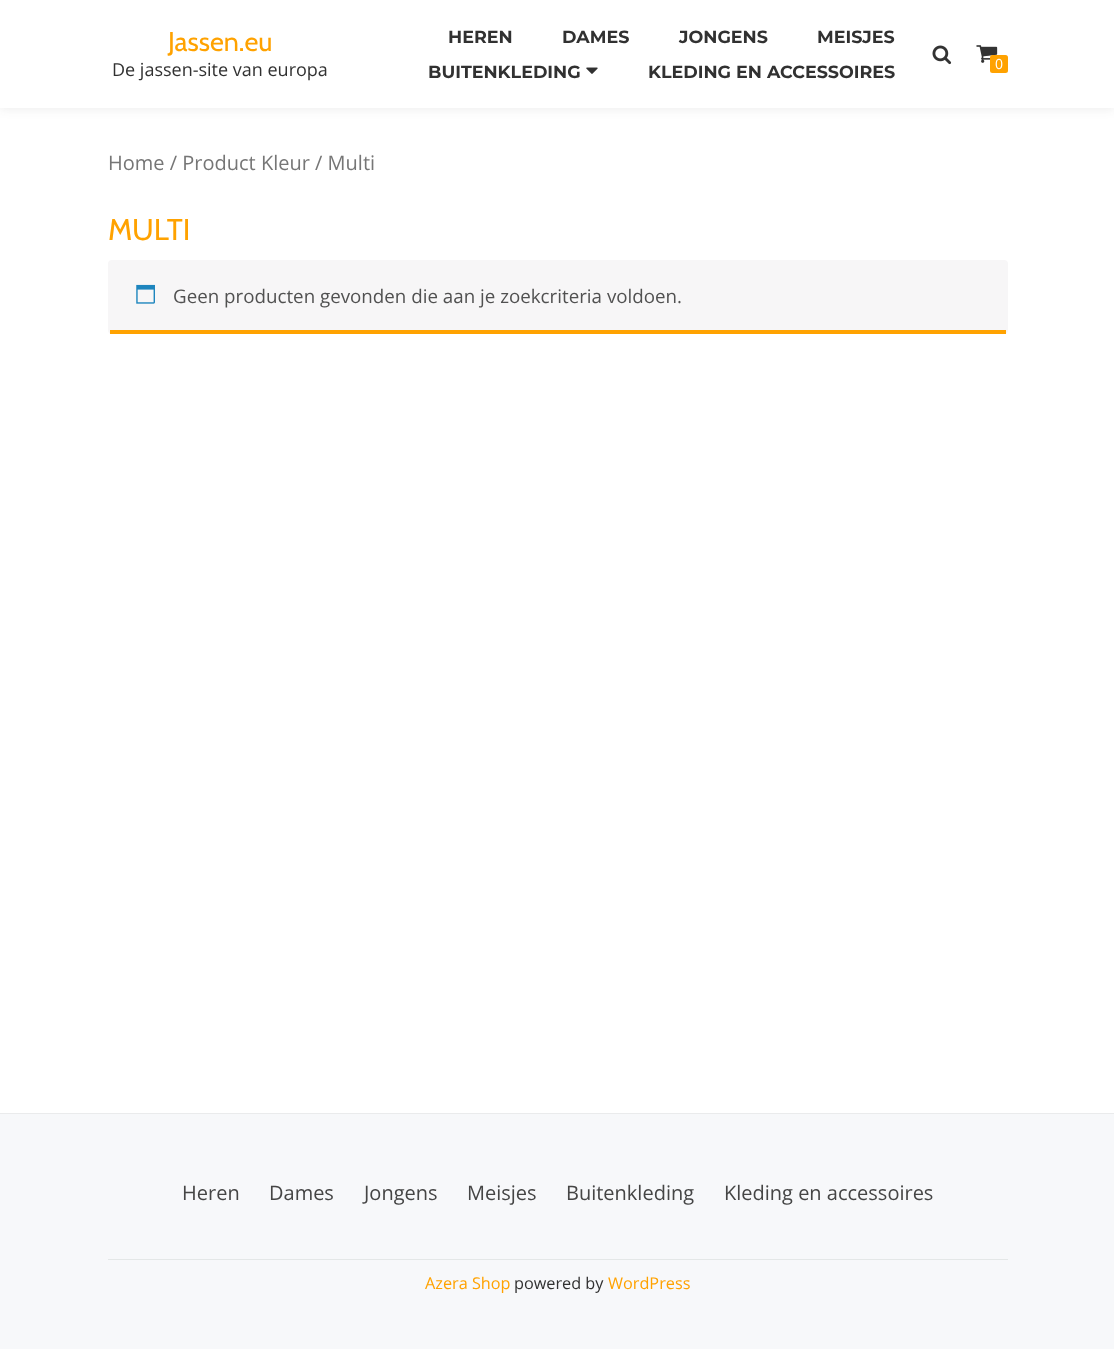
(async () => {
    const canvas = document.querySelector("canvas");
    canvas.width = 1114;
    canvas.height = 1349;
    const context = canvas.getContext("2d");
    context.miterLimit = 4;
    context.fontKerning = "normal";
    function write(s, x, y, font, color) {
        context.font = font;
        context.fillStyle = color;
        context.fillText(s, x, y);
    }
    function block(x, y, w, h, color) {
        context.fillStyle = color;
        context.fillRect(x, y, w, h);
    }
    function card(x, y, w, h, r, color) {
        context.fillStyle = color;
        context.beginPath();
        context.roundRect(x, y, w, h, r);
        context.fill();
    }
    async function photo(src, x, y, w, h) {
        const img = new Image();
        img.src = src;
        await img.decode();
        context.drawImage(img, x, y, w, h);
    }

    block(0, 0, 1114, 1349, "rgb(255, 255, 255)");
    context.fillStyle = "rgba(50, 50, 50, 0.08)";
    context.filter = "blur(5px)";
    context.beginPath();
    context.rect(0, 3, 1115, 107);
    context.fill();
    context.filter = "none";
    block(0, 0, 1114, 108, "rgb(255, 255, 255)");
    write("Jassen.eu", 168, 51, "27px Cabin", "rgb(255, 162, 0)");
    write("De jassen-site van europa", 112, 76, "18px Open Sans", "rgb(49, 49, 49)");
    write("HEREN", 448, 43, "bold 17.5px Montserrat", "rgb(49, 49, 49)");
    write("DAMES", 562, 43, "bold 17.5px Montserrat", "rgb(49, 49, 49)");
    write("JONGENS", 679, 43, "bold 17.5px Montserrat", "rgb(49, 49, 49)");
    write("MEISJES", 817, 43, "bold 17.5px Montserrat", "rgb(49, 49, 49)");
    write("BUITENKLEDING", 428, 78, "bold 17.5px Montserrat", "rgb(49, 49, 49)");
    await photo("media/1.png", 586, 67, 12, 7);
    write("KLEDING EN ACCESSOIRES", 648, 78, "bold 17.5px Montserrat", "rgb(49, 49, 49)");
    await photo("media/2.png", 932, 45, 20, 20);
    await photo("media/3.png", 976, 45, 22, 18);
    card(990, 55, 18, 18, 2.5, "rgb(255, 162, 0)");
    write("0", 995, 69, "14px Open Sans", "rgb(255, 255, 255)");
    write("Home / Product Kleur / Multi", 108, 170, "20px Open Sans", "rgb(118, 118, 118)");
    write("MULTI", 108, 240, "30px Cabin", "rgb(255, 162, 0)");
    card(108, 260, 900, 74, 4, "rgb(247, 246, 247)");
    block(110, 330, 896, 4, "rgb(255, 162, 0)");
    await photo("media/4.png", 136, 284, 19, 20);
    write("Geen producten gevonden die aan je zoekcriteria voldoen.", 173, 303, "18.75px Open Sans", "rgb(81, 81, 81)");
    block(0, 1114, 1114, 235, "rgb(247, 248, 250)");
    block(0, 1113, 1114, 1, "rgb(234, 235, 236)");
    write("Heren", 182, 1200, "20px Open Sans", "rgb(69, 69, 69)");
    write("Dames", 269, 1200, "20px Open Sans", "rgb(69, 69, 69)");
    write("Jongens", 364, 1200, "20px Open Sans", "rgb(69, 69, 69)");
    write("Meisjes", 467, 1200, "20px Open Sans", "rgb(69, 69, 69)");
    write("Buitenkleding", 566, 1200, "20px Open Sans", "rgb(69, 69, 69)");
    write("Kleding en accessoires", 724, 1200, "20px Open Sans", "rgb(69, 69, 69)");
    block(108, 1259, 900, 1, "rgb(228, 231, 231)");
    write("Azera Shop", 425, 1289, "16.25px Open Sans", "rgb(255, 162, 0)");
    write("powered by", 514, 1289, "16.25px Open Sans", "rgb(49, 49, 49)");
    write("WordPress", 608, 1289, "16.25px Open Sans", "rgb(255, 162, 0)");
})();
